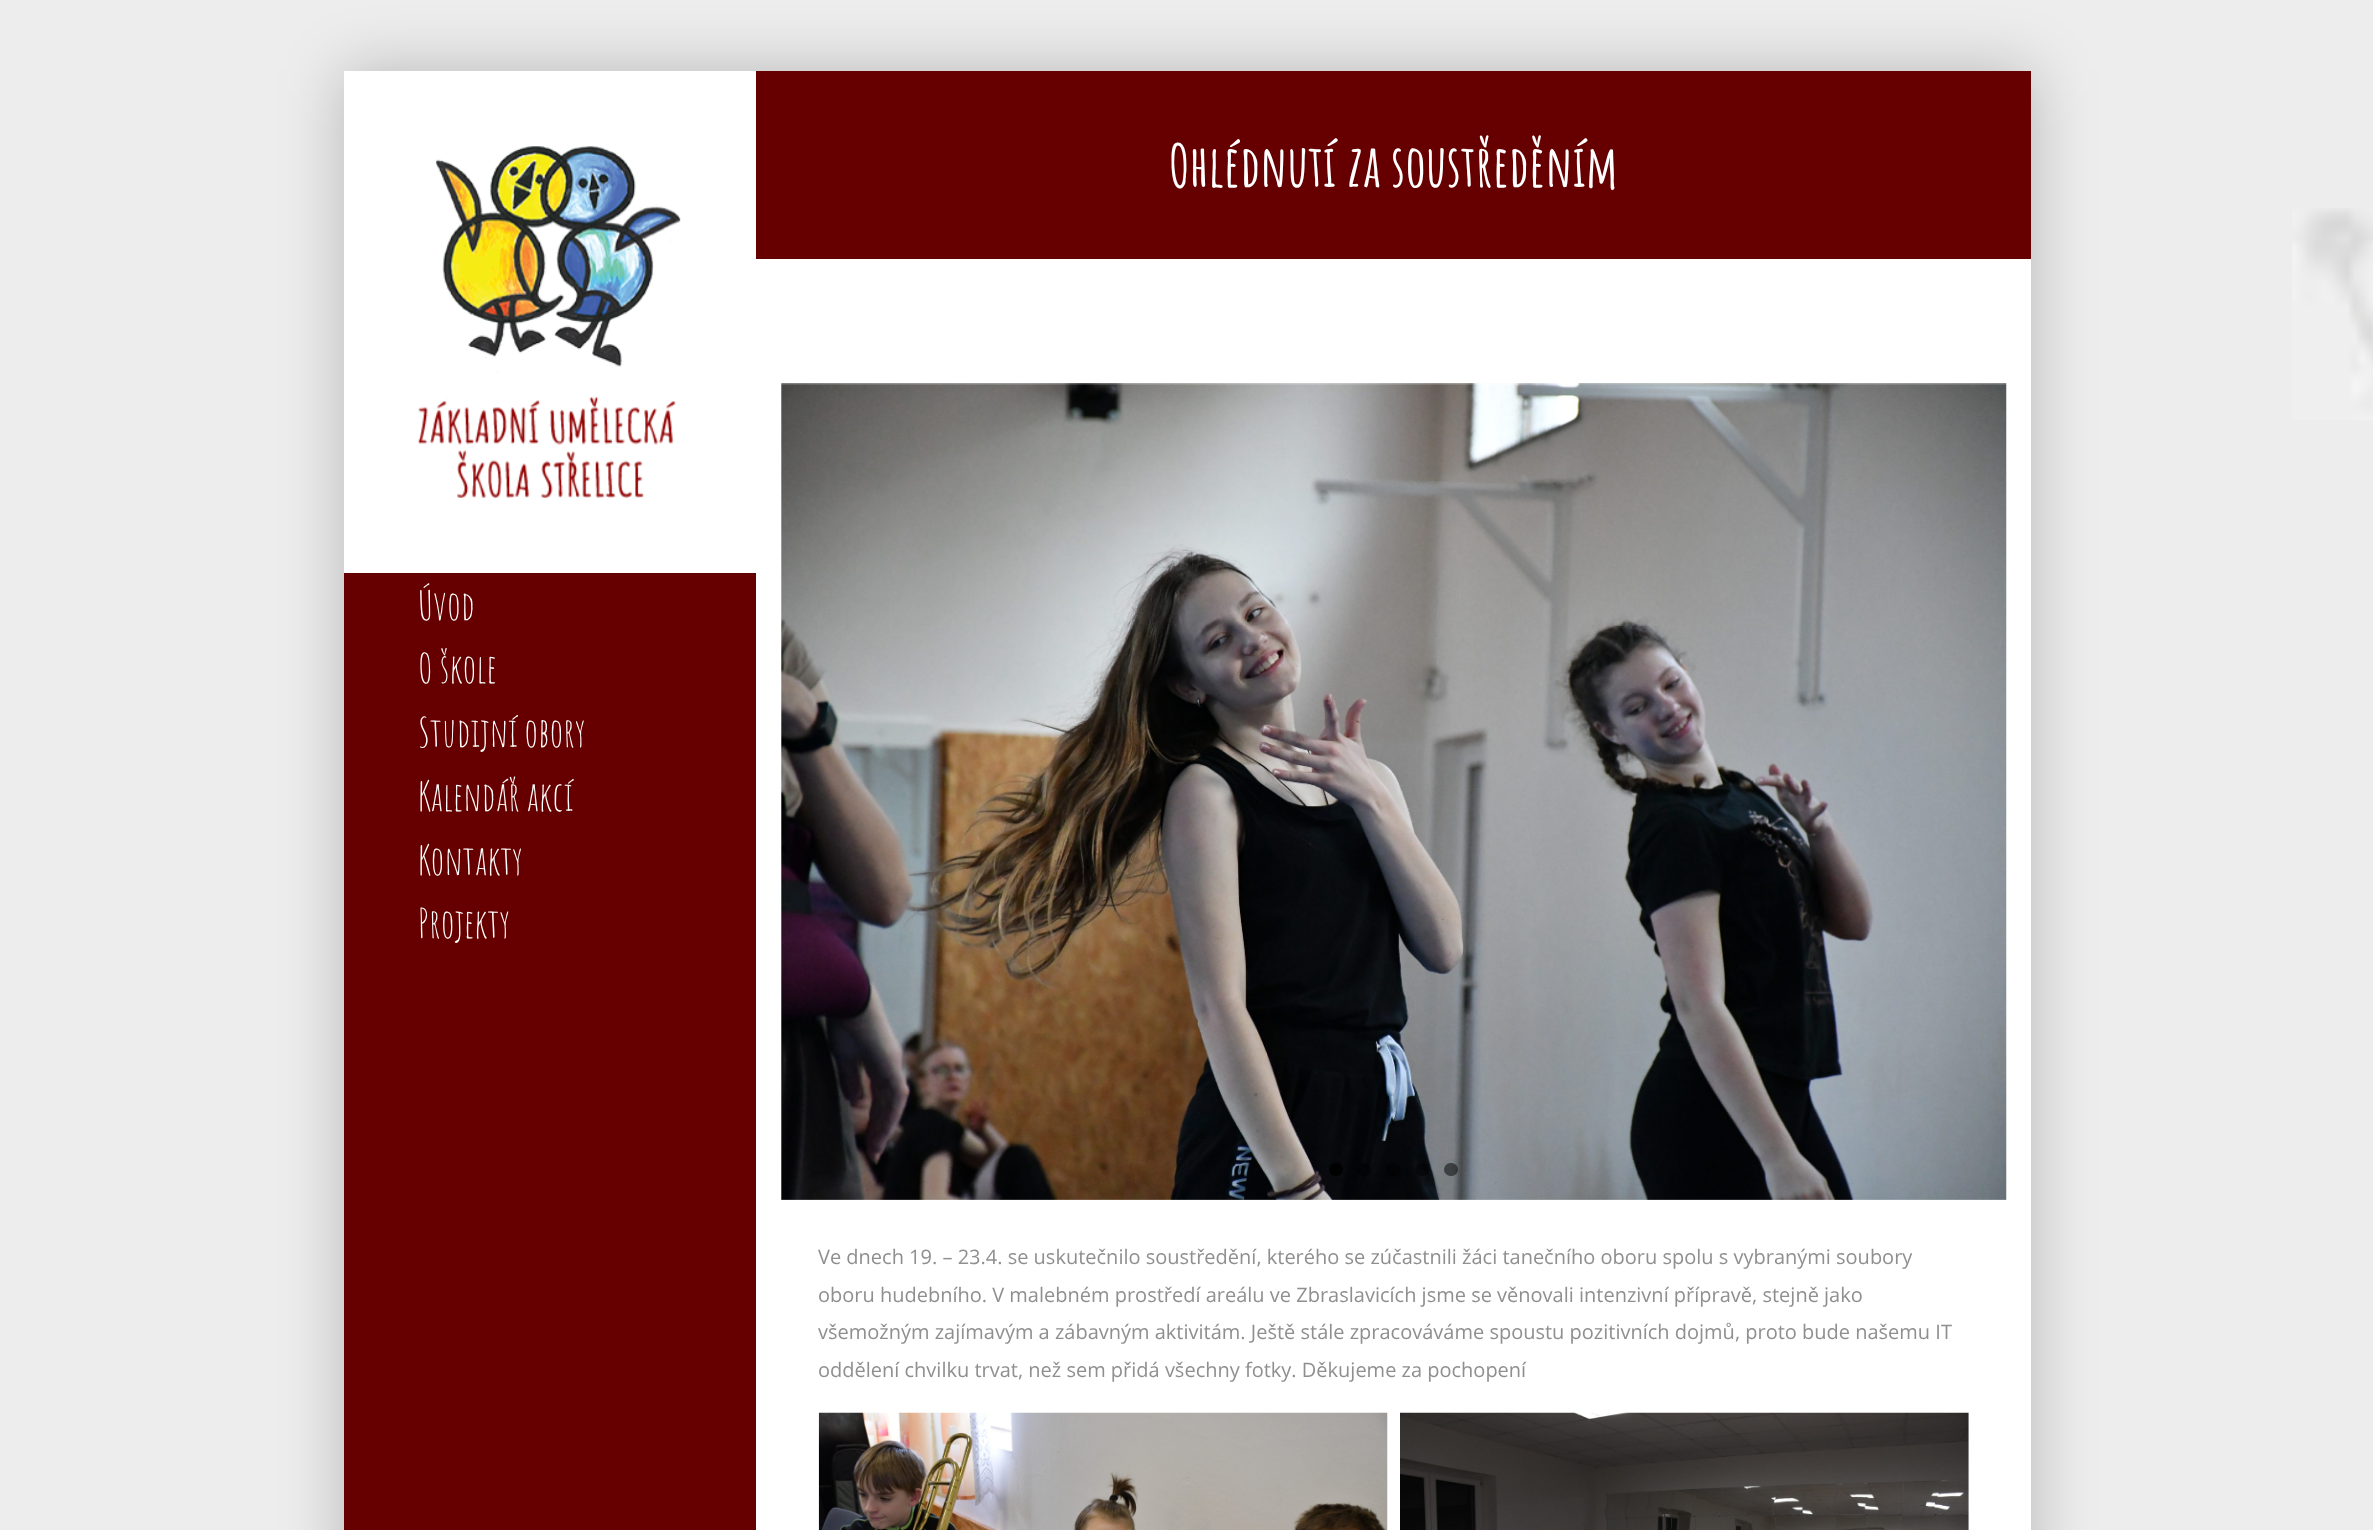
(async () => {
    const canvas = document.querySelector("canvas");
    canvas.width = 2373;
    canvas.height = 1530;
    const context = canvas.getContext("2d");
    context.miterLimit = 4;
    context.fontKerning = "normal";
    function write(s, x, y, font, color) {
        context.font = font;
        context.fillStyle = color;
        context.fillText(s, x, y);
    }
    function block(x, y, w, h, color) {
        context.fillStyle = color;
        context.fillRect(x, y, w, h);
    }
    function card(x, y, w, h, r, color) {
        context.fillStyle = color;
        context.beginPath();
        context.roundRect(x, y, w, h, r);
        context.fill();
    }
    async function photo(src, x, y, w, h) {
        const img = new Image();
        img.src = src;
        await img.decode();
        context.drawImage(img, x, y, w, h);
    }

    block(0, 0, 2373, 1530, "rgb(237, 237, 237)");
    await photo("media/1.png", 2292, 208, 81, 212);
    context.fillStyle = "rgba(0, 0, 0, 0.22)";
    context.filter = "blur(31px)";
    context.beginPath();
    context.rect(343, 70, 1690, 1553);
    context.fill();
    context.filter = "none";
    block(756, 71, 1275, 188, "rgb(102, 0, 0)");
    write("Ohlédnutí za soustředěním", 1169, 187, "bold 57.5px Amatic SC", "rgb(255, 255, 255)");
    block(344, 573, 412, 957, "rgb(102, 0, 0)");
    block(344, 71, 412, 502, "rgb(255, 255, 255)");
    await photo("media/2.png", 418, 146, 263, 352);
    write("Úvod", 418, 620, "40px Amatic SC", "rgb(255, 255, 255)");
    write("O škole", 418, 683, "40px Amatic SC", "rgb(255, 255, 255)");
    write("Studijní obory", 418, 747, "40px Amatic SC", "rgb(255, 255, 255)");
    write("Kalendář akcí", 418, 811, "40px Amatic SC", "rgb(255, 255, 255)");
    write("Kontakty", 418, 875, "40px Amatic SC", "rgb(255, 255, 255)");
    write("Projekty", 418, 938, "40px Amatic SC", "rgb(255, 255, 255)");
    block(756, 259, 1275, 1271, "rgb(255, 255, 255)");
    await photo("media/3.png", 781, 383, 1226, 817);
    card(1329, 1163, 14, 13, 6.5, "rgba(0, 0, 0, 0.9)");
    context.fillStyle = "rgba(0, 0, 0, 0.5)";
    context.beginPath();
    context.arc(1364.5, 1169.5, 6.5, 0, Math.PI * 2);
    context.fill();
    card(1386, 1163, 14, 13, 6.5, "rgba(0, 0, 0, 0.5)");
    card(1415, 1163, 14, 13, 6.5, "rgba(0, 0, 0, 0.5)");
    card(1444, 1163, 14, 13, 6.5, "rgba(0, 0, 0, 0.5)");
    write("Ve dnech 19. – 23.4. se uskutečnilo soustředění, kterého se zúčastnili žáci tanečního oboru spolu s vybranými soubory", 818, 1264, "20px Open Sans", "rgb(143, 143, 143)");
    write("oboru hudebního. V malebném prostředí areálu ve Zbraslavicích jsme se věnovali intenzivní přípravě, stejně jako", 818, 1302, "20px Open Sans", "rgb(143, 143, 143)");
    write("všemožným zajímavým a zábavným aktivitám. Ještě stále zpracováváme spoustu pozitivních dojmů, proto bude našemu IT", 818, 1339, "20px Open Sans", "rgb(143, 143, 143)");
    write("oddělení chvilku trvat, než sem přidá všechny fotky. Děkujeme za pochopení", 818, 1377, "20px Open Sans", "rgb(143, 143, 143)");
    await photo("media/4.png", 818, 1412, 570, 118);
    await photo("media/5.png", 1400, 1412, 569, 118);
})();
